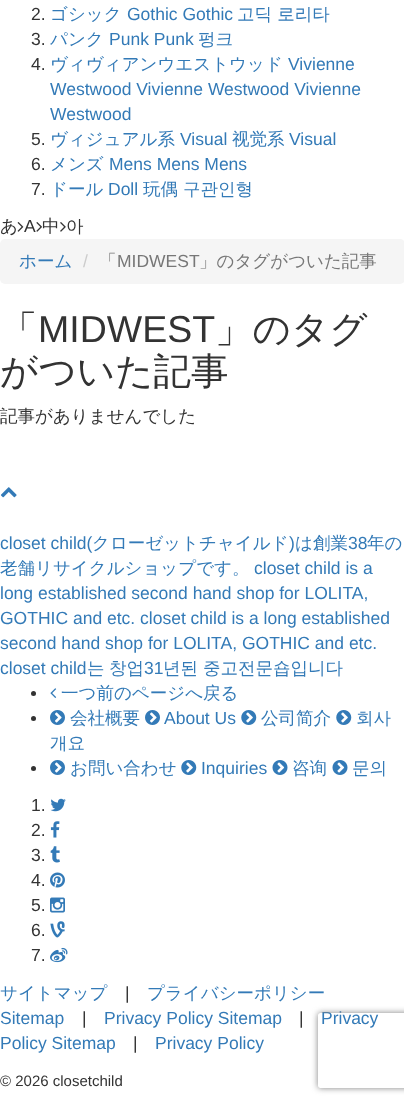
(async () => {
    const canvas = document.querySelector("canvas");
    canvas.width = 404;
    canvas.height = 1104;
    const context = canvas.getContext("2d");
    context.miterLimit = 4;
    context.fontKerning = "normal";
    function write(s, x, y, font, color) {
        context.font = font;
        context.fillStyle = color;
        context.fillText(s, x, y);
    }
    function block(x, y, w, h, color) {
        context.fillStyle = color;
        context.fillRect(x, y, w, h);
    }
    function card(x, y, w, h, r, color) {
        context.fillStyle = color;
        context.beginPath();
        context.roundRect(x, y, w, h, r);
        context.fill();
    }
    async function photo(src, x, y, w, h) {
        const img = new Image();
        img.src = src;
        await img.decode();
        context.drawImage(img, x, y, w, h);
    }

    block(0, 0, 404, 1104, "rgb(255, 255, 255)");
    write("2.", 31, 20, "17.5px Liberation Sans", "rgb(51, 51, 51)");
    write("ゴシック", 50, 20, "500 17.5px WenQuanYi Zen Hei", "rgb(51, 122, 183)");
    write("Gothic Gothic", 127, 20, "17.5px Liberation Sans", "rgb(51, 122, 183)");
    write("고딕 로리타", 237, 20, "500 17.5px WenQuanYi Zen Hei", "rgb(51, 122, 183)");
    write("3.", 31, 45, "17.5px Liberation Sans", "rgb(51, 51, 51)");
    write("パンク", 50, 45, "500 17.5px WenQuanYi Zen Hei", "rgb(51, 122, 183)");
    write("Punk Punk", 109, 45, "17.5px Liberation Sans", "rgb(51, 122, 183)");
    write("펑크", 198, 45, "500 17.5px WenQuanYi Zen Hei", "rgb(51, 122, 183)");
    write("4.", 31, 70, "17.5px Liberation Sans", "rgb(51, 51, 51)");
    write("ヴィヴィアンウエストウッド", 50, 70, "500 17.5px WenQuanYi Zen Hei", "rgb(51, 122, 183)");
    write("Vivienne", 288, 70, "17.5px Liberation Sans", "rgb(51, 122, 183)");
    write("Westwood Vivienne Westwood Vivienne", 50, 95, "17.5px Liberation Sans", "rgb(51, 122, 183)");
    write("Westwood", 50, 120, "17.5px Liberation Sans", "rgb(51, 122, 183)");
    write("5.", 31, 145, "17.5px Liberation Sans", "rgb(51, 51, 51)");
    write("ヴィジュアル系", 50, 145, "500 17.5px WenQuanYi Zen Hei", "rgb(51, 122, 183)");
    write("Visual", 180, 145, "17.5px Liberation Sans", "rgb(51, 122, 183)");
    write("视觉系", 232, 145, "500 17.5px WenQuanYi Zen Hei", "rgb(51, 122, 183)");
    write("Visual", 289, 145, "17.5px Liberation Sans", "rgb(51, 122, 183)");
    write("6.", 31, 170, "17.5px Liberation Sans", "rgb(51, 51, 51)");
    write("メンズ", 50, 170, "500 17.5px WenQuanYi Zen Hei", "rgb(51, 122, 183)");
    write("Mens Mens Mens", 109, 170, "17.5px Liberation Sans", "rgb(51, 122, 183)");
    write("7.", 31, 195, "17.5px Liberation Sans", "rgb(51, 51, 51)");
    write("ドール", 50, 195, "500 17.5px WenQuanYi Zen Hei", "rgb(51, 122, 183)");
    write("Doll", 108, 195, "17.5px Liberation Sans", "rgb(51, 122, 183)");
    write("玩偶", 143, 195, "500 17.5px WenQuanYi Zen Hei", "rgb(51, 122, 183)");
    write("구관인형", 183, 195, "500 17.5px WenQuanYi Zen Hei", "rgb(51, 122, 183)");
    write("あ", 0, 232, "500 17.5px WenQuanYi Zen Hei", "rgb(51, 51, 51)");
    await photo("media/1.png", 17, 222, 7, 10);
    write("A", 24, 232, "17.5px Liberation Sans", "rgb(51, 51, 51)");
    await photo("media/2.png", 36, 222, 6, 10);
    write("中", 42, 232, "500 17.5px WenQuanYi Zen Hei", "rgb(51, 51, 51)");
    await photo("media/3.png", 60, 222, 6, 10);
    write("아", 66, 232, "500 17.5px WenQuanYi Zen Hei", "rgb(51, 51, 51)");
    card(0, 239, 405, 45, 5, "rgb(245, 245, 245)");
    write("ホーム", 19, 267, "500 17.5px WenQuanYi Zen Hei", "rgb(51, 122, 183)");
    write("/", 83, 267, "17.5px Liberation Sans", "rgb(204, 204, 204)");
    write("「", 99, 267, "500 17.5px WenQuanYi Zen Hei", "rgb(119, 119, 119)");
    write("MIDWEST", 117, 267, "17.5px Liberation Sans", "rgb(119, 119, 119)");
    write("」のタグがついた記事", 199, 267, "500 17.5px WenQuanYi Zen Hei", "rgb(119, 119, 119)");
    write("「", 0, 342, "500 37.5px WenQuanYi Zen Hei", "rgb(51, 51, 51)");
    write("MIDWEST", 38, 342, "37.5px Liberation Sans", "rgb(51, 51, 51)");
    write("」のタグ", 215, 342, "500 37.5px WenQuanYi Zen Hei", "rgb(51, 51, 51)");
    write("がついた記事", 0, 384, "500 37.5px WenQuanYi Zen Hei", "rgb(51, 51, 51)");
    write("記事がありませんでした", 0, 422, "500 17.5px WenQuanYi Zen Hei", "rgb(51, 51, 51)");
    await photo("media/4.png", 0, 487, 17, 11);
    write("closet child(", 0, 549, "17.5px Liberation Sans", "rgb(51, 122, 183)");
    write("クローゼットチャイルド", 92, 549, "500 17.5px WenQuanYi Zen Hei", "rgb(51, 122, 183)");
    write(")", 289, 549, "17.5px Liberation Sans", "rgb(51, 122, 183)");
    write("は創業", 295, 549, "500 17.5px WenQuanYi Zen Hei", "rgb(51, 122, 183)");
    write("38", 348, 549, "17.5px Liberation Sans", "rgb(51, 122, 183)");
    write("年の", 367, 549, "500 17.5px WenQuanYi Zen Hei", "rgb(51, 122, 183)");
    write("老舗リサイクルショップです。", 0, 574, "500 17.5px WenQuanYi Zen Hei", "rgb(51, 122, 183)");
    write("closet child is a", 254, 574, "17.5px Liberation Sans", "rgb(51, 122, 183)");
    write("long established second hand shop for LOLITA,", 0, 599, "17.5px Liberation Sans", "rgb(51, 122, 183)");
    write("GOTHIC and etc. closet child is a long established", 0, 624, "17.5px Liberation Sans", "rgb(51, 122, 183)");
    write("second hand shop for LOLITA, GOTHIC and etc.", 0, 649, "17.5px Liberation Sans", "rgb(51, 122, 183)");
    write("closet child", 0, 674, "17.5px Liberation Sans", "rgb(51, 122, 183)");
    write("는", 87, 674, "500 17.5px WenQuanYi Zen Hei", "rgb(51, 122, 183)");
    write("창업", 109, 674, "500 17.5px WenQuanYi Zen Hei", "rgb(51, 122, 183)");
    write("31", 144, 674, "17.5px Liberation Sans", "rgb(51, 122, 183)");
    write("년된", 163, 674, "500 17.5px WenQuanYi Zen Hei", "rgb(51, 122, 183)");
    write("중고전문숍입니다", 203, 674, "500 17.5px WenQuanYi Zen Hei", "rgb(51, 122, 183)");
    context.fillStyle = "rgb(51, 51, 51)";
    context.beginPath();
    context.arc(33.5, 693.5, 2.5, 0, Math.PI * 2);
    context.fill();
    await photo("media/5.png", 50, 688, 7, 10);
    write("一つ前のページへ戻る", 61, 699, "500 17.5px WenQuanYi Zen Hei", "rgb(51, 122, 183)");
    context.fillStyle = "rgb(51, 51, 51)";
    context.beginPath();
    context.arc(33.5, 718.5, 2.5, 0, Math.PI * 2);
    context.fill();
    await photo("media/6.png", 50, 710, 15, 15);
    write("会社概要", 70, 724, "500 17.5px WenQuanYi Zen Hei", "rgb(51, 122, 183)");
    await photo("media/7.png", 241, 710, 16, 15);
    write("公司简介", 261, 724, "500 17.5px WenQuanYi Zen Hei", "rgb(51, 122, 183)");
    await photo("media/7.png", 336, 710, 16, 15);
    write("회사", 356, 724, "500 17.5px WenQuanYi Zen Hei", "rgb(51, 122, 183)");
    write("개요", 50, 749, "500 17.5px WenQuanYi Zen Hei", "rgb(51, 122, 183)");
    await photo("media/6.png", 145, 710, 15, 15);
    write("About Us", 164, 724, "17.5px Liberation Sans", "rgb(51, 122, 183)");
    context.fillStyle = "rgb(51, 51, 51)";
    context.beginPath();
    context.arc(33.5, 768.5, 2.5, 0, Math.PI * 2);
    context.fill();
    await photo("media/6.png", 50, 760, 15, 15);
    write("お問い合わせ", 70, 774, "500 17.5px WenQuanYi Zen Hei", "rgb(51, 122, 183)");
    await photo("media/7.png", 181, 760, 16, 15);
    write("Inquiries", 201, 774, "17.5px Liberation Sans", "rgb(51, 122, 183)");
    await photo("media/8.png", 272, 760, 16, 15);
    write("咨询", 292, 774, "500 17.5px WenQuanYi Zen Hei", "rgb(51, 122, 183)");
    await photo("media/8.png", 332, 760, 16, 15);
    write("문의", 352, 774, "500 17.5px WenQuanYi Zen Hei", "rgb(51, 122, 183)");
    write("1.", 31, 811, "17.5px Liberation Sans", "rgb(51, 51, 51)");
    await photo("media/9.png", 50, 798, 16, 14);
    write("2.", 31, 836, "17.5px Liberation Sans", "rgb(51, 51, 51)");
    await photo("media/10.png", 50, 821, 10, 17);
    write("3.", 31, 861, "17.5px Liberation Sans", "rgb(51, 51, 51)");
    await photo("media/11.png", 50, 846, 10, 17);
    write("4.", 31, 886, "17.5px Liberation Sans", "rgb(51, 51, 51)");
    await photo("media/12.png", 50, 872, 15, 16);
    write("5.", 31, 911, "17.5px Liberation Sans", "rgb(51, 51, 51)");
    await photo("media/13.png", 50, 897, 15, 16);
    write("6.", 31, 936, "17.5px Liberation Sans", "rgb(51, 51, 51)");
    await photo("media/14.png", 50, 921, 15, 17);
    write("7.", 31, 961, "17.5px Liberation Sans", "rgb(51, 51, 51)");
    await photo("media/15.png", 50, 947, 18, 16);
    write("サイトマップ", 0, 999, "500 17.5px WenQuanYi Zen Hei", "rgb(51, 122, 183)");
    write("|", 125, 999, "17.5px Liberation Sans", "rgb(51, 51, 51)");
    write("プライバシーポリシー", 147, 999, "500 17.5px WenQuanYi Zen Hei", "rgb(51, 122, 183)");
    write("Sitemap", 0, 1024, "17.5px Liberation Sans", "rgb(51, 122, 183)");
    write("|", 82, 1024, "17.5px Liberation Sans", "rgb(51, 51, 51)");
    write("Privacy Policy Sitemap", 104, 1024, "17.5px Liberation Sans", "rgb(51, 122, 183)");
    write("|", 299, 1024, "17.5px Liberation Sans", "rgb(51, 51, 51)");
    write("Privacy", 321, 1024, "17.5px Liberation Sans", "rgb(51, 122, 183)");
    write("Policy Sitemap", 0, 1049, "17.5px Liberation Sans", "rgb(51, 122, 183)");
    write("|", 133, 1049, "17.5px Liberation Sans", "rgb(51, 51, 51)");
    write("Privacy Policy", 155, 1049, "17.5px Liberation Sans", "rgb(51, 122, 183)");
    write("© 2026 closetchild", 0, 1086, "15px Liberation Sans", "rgb(51, 51, 51)");
    context.save();
    context.beginPath();
    context.moveTo(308, 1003);
    context.lineTo(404, 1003);
    context.lineTo(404, 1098);
    context.lineTo(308, 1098);
    context.closePath();
    context.moveTo(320.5, 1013);
    context.lineTo(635.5, 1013);
    context.bezierCurveTo(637, 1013, 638, 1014, 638, 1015.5);
    context.lineTo(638, 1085.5);
    context.bezierCurveTo(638, 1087, 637, 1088, 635.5, 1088);
    context.lineTo(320.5, 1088);
    context.bezierCurveTo(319, 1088, 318, 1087, 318, 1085.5);
    context.lineTo(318, 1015.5);
    context.bezierCurveTo(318, 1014, 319, 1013, 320.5, 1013);
    context.closePath();
    context.clip("evenodd");
    context.fillStyle = "rgb(128, 128, 128)";
    context.filter = "blur(3px)";
    context.beginPath();
    context.roundRect(318, 1013, 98, 75, 2.5);
    context.fill();
    context.filter = "none";
    context.restore();
})();
